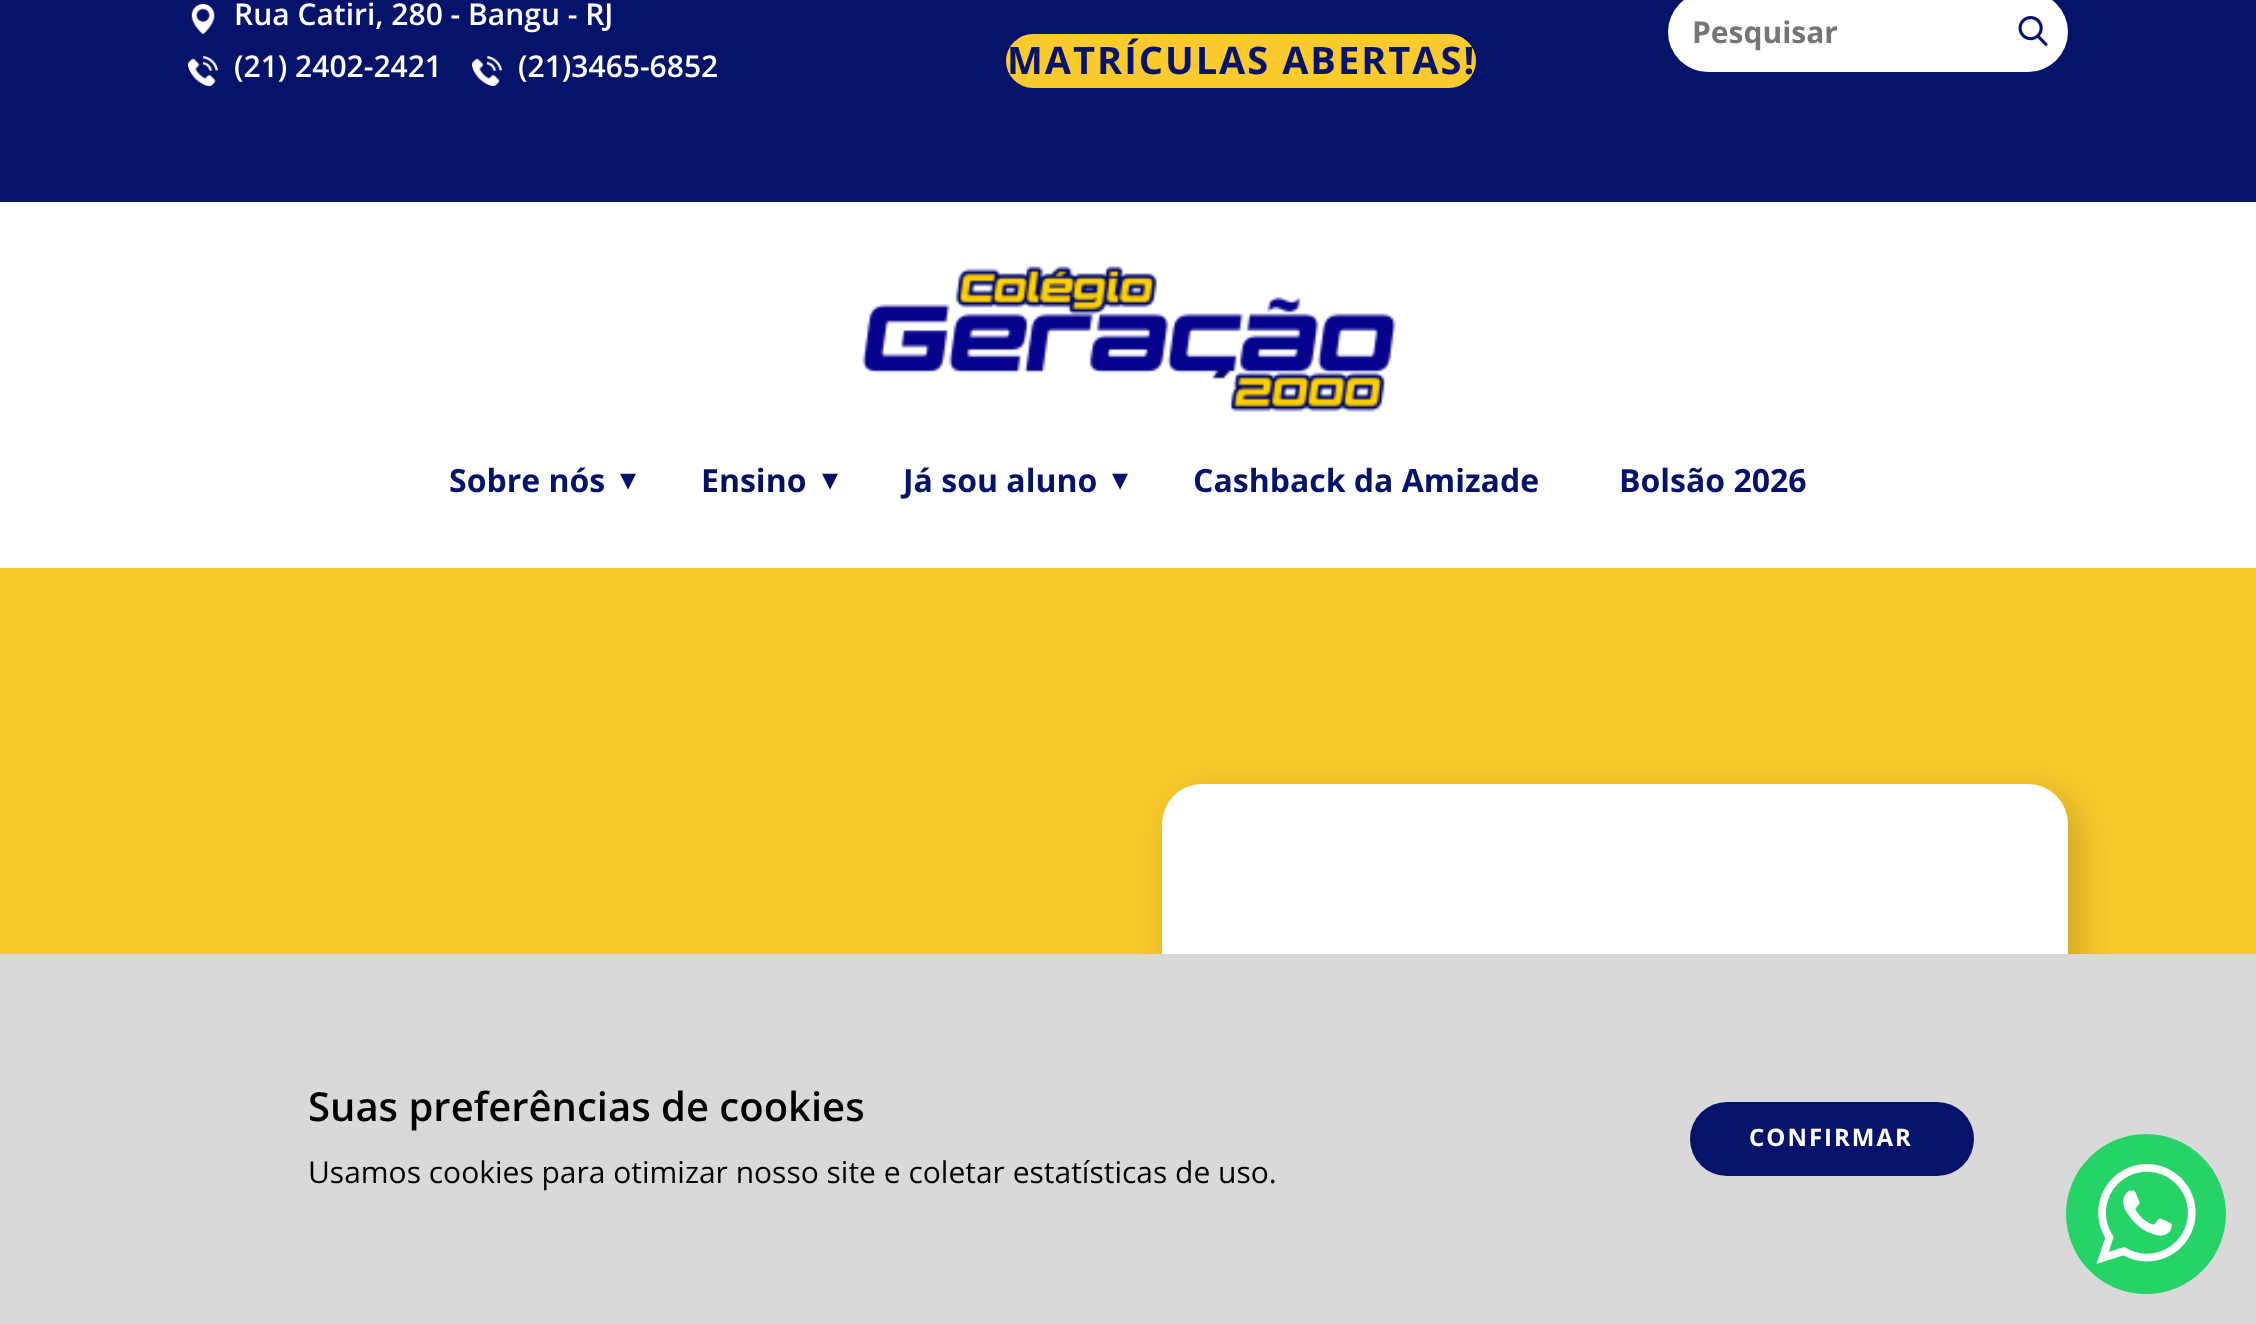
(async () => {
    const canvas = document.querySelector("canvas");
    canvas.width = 2256;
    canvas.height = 1324;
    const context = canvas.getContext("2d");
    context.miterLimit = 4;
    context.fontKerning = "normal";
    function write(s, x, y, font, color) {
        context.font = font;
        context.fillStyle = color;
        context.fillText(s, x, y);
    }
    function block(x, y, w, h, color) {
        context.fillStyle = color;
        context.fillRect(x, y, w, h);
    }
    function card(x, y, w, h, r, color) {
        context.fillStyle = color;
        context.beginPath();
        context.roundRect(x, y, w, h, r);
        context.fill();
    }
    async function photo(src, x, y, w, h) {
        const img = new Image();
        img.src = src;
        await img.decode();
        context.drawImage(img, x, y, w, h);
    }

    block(0, 0, 2256, 1324, "rgb(255, 255, 255)");
    block(0, 0, 2256, 202, "rgb(6, 19, 107)");
    await photo("media/1.png", 191, 4, 24, 30);
    write("Rua Catiri, 280 - Bangu - RJ", 234, 25, "600 30px Open Sans", "rgb(255, 255, 255)");
    await photo("media/2.png", 188, 56, 30, 30);
    write("(21) 2402-2421", 234, 77, "600 30px Open Sans", "rgb(255, 255, 255)");
    await photo("media/2.png", 472, 56, 30, 30);
    write("(21)3465-6852", 518, 77, "600 30px Open Sans", "rgb(255, 255, 255)");
    card(1006, 34, 470, 54, 27, "rgb(251, 202, 44)");
    context.letterSpacing = "2px";
    write("MATRÍCULAS ABERTAS!", 1007, 74, "bold 38px Open Sans", "rgb(6, 19, 107)");
    card(1668, -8, 400, 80, 40, "rgb(255, 255, 255)");
    context.letterSpacing = "0px";
    write("Pesquisar", 1692, 43, "bold 30px Open Sans", "rgb(117, 117, 117)");
    await photo("media/3.png", 2018, 16, 30, 30);
    await photo("media/4.png", 862, 266, 534, 146);
    write("Sobre nós", 449, 492, "bold 32px Open Sans", "rgb(6, 19, 107)");
    write("▾", 620, 490, "32px DejaVu Sans", "rgb(6, 19, 107)");
    write("Ensino", 701, 492, "bold 32px Open Sans", "rgb(5, 17, 96)");
    write("▾", 822, 490, "32px DejaVu Sans", "rgb(5, 17, 96)");
    write("Já sou aluno", 903, 492, "bold 32px Open Sans", "rgb(6, 19, 107)");
    write("▾", 1112, 490, "32px DejaVu Sans", "rgb(6, 19, 107)");
    write("Cashback da Amizade", 1193, 492, "bold 32px Open Sans", "rgb(6, 19, 107)");
    write("Bolsão 2026", 1619, 492, "bold 32px Open Sans", "rgb(6, 19, 107)");
    block(0, 568, 2256, 386, "rgb(251, 202, 44)");
    context.fillStyle = "rgba(0, 0, 0, 0.2)";
    context.filter = "blur(20px)";
    context.beginPath();
    context.roundRect(1172, 794, 906, 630, 40);
    context.fill();
    context.filter = "none";
    card(1162, 784, 906, 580, 40, "rgb(255, 255, 255)");
    block(0, 954, 2256, 370, "rgb(217, 217, 217)");
    write("Suas preferências de cookies", 308, 1121, "600 40px Open Sans", "rgb(0, 0, 0)");
    write("Usamos cookies para otimizar nosso site e coletar estatísticas de uso.", 308, 1183, "30px Open Sans", "rgb(0, 0, 0)");
    card(1690, 1102, 284, 74, 37, "rgb(6, 19, 107)");
    context.letterSpacing = "2px";
    write("CONFIRMAR", 1749, 1146, "bold 24px Open Sans", "rgb(255, 255, 255)");
    context.fillStyle = "rgb(37, 211, 102)";
    context.beginPath();
    context.arc(2146, 1214, 80, 0, Math.PI * 2);
    context.fill();
    await photo("media/5.png", 2096, 1164, 100, 100);
})();
